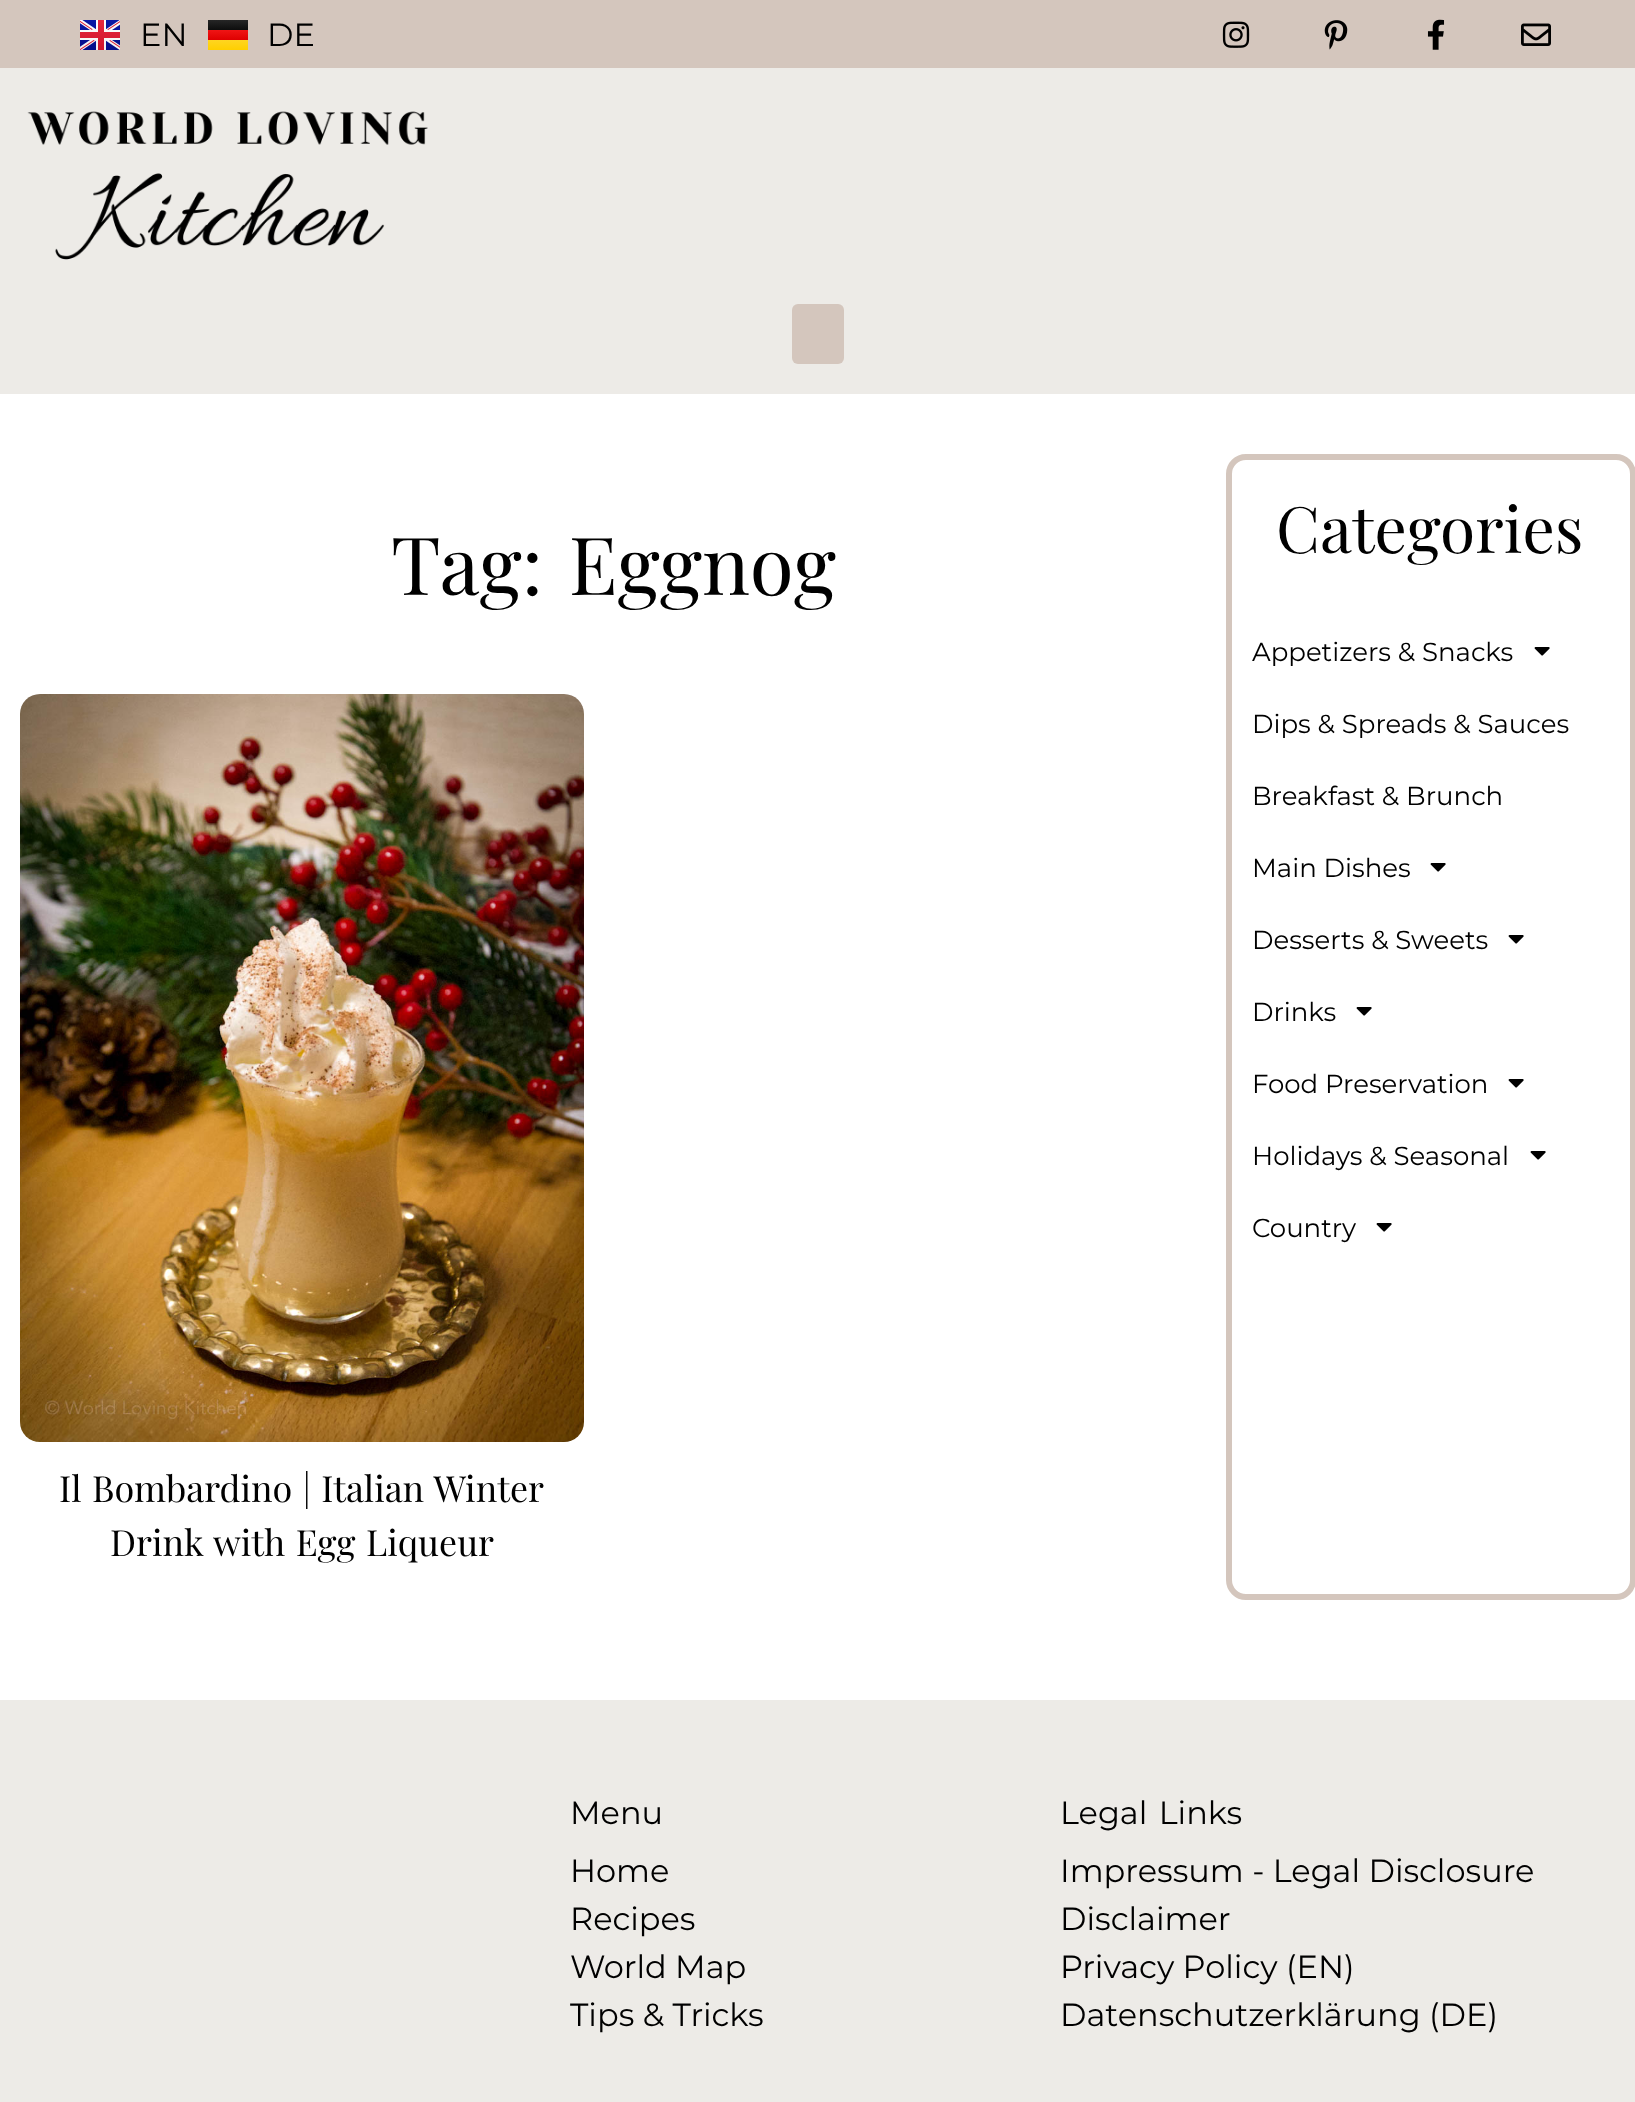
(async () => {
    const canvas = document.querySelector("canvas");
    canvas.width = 1635;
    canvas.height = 2102;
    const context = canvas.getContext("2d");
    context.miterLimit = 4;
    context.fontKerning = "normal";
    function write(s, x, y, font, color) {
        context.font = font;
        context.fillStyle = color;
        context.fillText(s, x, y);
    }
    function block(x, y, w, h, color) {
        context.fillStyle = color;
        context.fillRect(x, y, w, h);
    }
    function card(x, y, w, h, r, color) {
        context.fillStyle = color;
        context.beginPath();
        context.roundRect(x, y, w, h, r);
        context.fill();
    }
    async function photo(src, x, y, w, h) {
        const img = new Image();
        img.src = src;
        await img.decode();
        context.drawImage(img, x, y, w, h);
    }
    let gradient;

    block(0, 0, 1635, 2102, "rgb(255, 255, 255)");
    block(0, 0, 1635, 68, "rgb(212, 198, 189)");
    await photo("media/1.png", 80, 20, 40, 30);
    write("EN", 140, 46, "32px Montserrat", "rgb(0, 0, 0)");
    gradient = context.createLinearGradient(227, 20, 227, 30);
    gradient.addColorStop(0, "rgb(38, 38, 38)");
    gradient.addColorStop(1, "rgb(13, 13, 13)");
    context.fillStyle = gradient;
    context.fillRect(208, 20, 40, 10);
    gradient = context.createLinearGradient(227, 30, 227, 40);
    gradient.addColorStop(0, "rgb(240, 21, 21)");
    gradient.addColorStop(1, "rgb(222, 0, 0)");
    context.fillStyle = gradient;
    context.fillRect(208, 30, 40, 10);
    gradient = context.createLinearGradient(227, 40, 227, 50);
    gradient.addColorStop(0, "rgb(255, 213, 33)");
    gradient.addColorStop(1, "rgb(255, 207, 0)");
    context.fillStyle = gradient;
    context.fillRect(208, 40, 40, 10);
    write("DE", 267, 46, "32px Montserrat", "rgb(0, 0, 0)");
    await photo("media/2.png", 1222, 21, 28, 27);
    await photo("media/3.png", 1324, 20, 24, 30);
    await photo("media/4.png", 1427, 19, 18, 31);
    await photo("media/5.png", 1521, 23, 30, 23);
    block(0, 68, 1635, 326, "rgb(237, 235, 231)");
    await photo("media/6.png", 27, 111, 401, 149);
    card(792, 304, 52, 60, 6, "rgb(212, 198, 189)");
    context.wordSpacing = "6px";
    write("Tag: Eggnog", 391, 595, "80px Playfair Display", "rgb(0, 0, 0)");
    await photo("media/7.png", 20, 694, 564, 748);
    context.wordSpacing = "1.5px";
    write("Il Bombardino | Italian Winter", 59, 1502, "36px Playfair Display", "rgb(0, 0, 0)");
    write("Drink with Egg Liqueur", 110, 1556, "36px Playfair Display", "rgb(0, 0, 0)");
    context.beginPath();
    context.roundRect(1229, 457, 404, 1140, 17);
    context.strokeStyle = "rgb(212, 198, 189)";
    context.lineWidth = 6;
    context.stroke();
    context.wordSpacing = "0px";
    write("Categories", 1276, 553, "64px Playfair Display", "rgb(0, 0, 0)");
    write("Appetizers & Snacks", 1252, 661, "26px Montserrat", "rgb(0, 0, 0)");
    await photo("media/8.png", 1534, 647, 16, 9);
    write("Dips & Spreads & Sauces", 1252, 733, "26px Montserrat", "rgb(0, 0, 0)");
    write("Breakfast & Brunch", 1252, 805, "26px Montserrat", "rgb(0, 0, 0)");
    write("Main Dishes", 1252, 877, "26px Montserrat", "rgb(0, 0, 0)");
    await photo("media/8.png", 1430, 863, 16, 9);
    write("Desserts & Sweets", 1252, 949, "26px Montserrat", "rgb(0, 0, 0)");
    await photo("media/8.png", 1508, 935, 16, 9);
    write("Drinks", 1252, 1021, "26px Montserrat", "rgb(0, 0, 0)");
    await photo("media/8.png", 1356, 1007, 16, 9);
    write("Food Preservation", 1252, 1093, "26px Montserrat", "rgb(0, 0, 0)");
    await photo("media/8.png", 1508, 1079, 16, 9);
    write("Holidays & Seasonal", 1252, 1165, "26px Montserrat", "rgb(0, 0, 0)");
    await photo("media/8.png", 1530, 1151, 16, 9);
    write("Country", 1252, 1237, "26px Montserrat", "rgb(0, 0, 0)");
    await photo("media/8.png", 1376, 1223, 16, 9);
    block(0, 1700, 1635, 402, "rgb(237, 235, 231)");
    write("Menu", 570, 1824, "32px Montserrat", "rgb(0, 0, 0)");
    write("Home", 570, 1882, "32px Montserrat", "rgb(0, 0, 0)");
    write("Recipes", 570, 1930, "32px Montserrat", "rgb(0, 0, 0)");
    write("World Map", 570, 1978, "32px Montserrat", "rgb(0, 0, 0)");
    write("Tips & Tricks", 570, 2026, "32px Montserrat", "rgb(0, 0, 0)");
    context.wordSpacing = "3px";
    write("Legal Links", 1060, 1824, "32px Montserrat", "rgb(0, 0, 0)");
    context.wordSpacing = "0px";
    write("Impressum - Legal Disclosure", 1060, 1882, "32px Montserrat", "rgb(0, 0, 0)");
    write("Disclaimer", 1060, 1930, "32px Montserrat", "rgb(0, 0, 0)");
    write("Privacy Policy (EN)", 1060, 1978, "32px Montserrat", "rgb(0, 0, 0)");
    write("Datenschutzerklärung (DE)", 1060, 2026, "32px Montserrat", "rgb(0, 0, 0)");
})();
